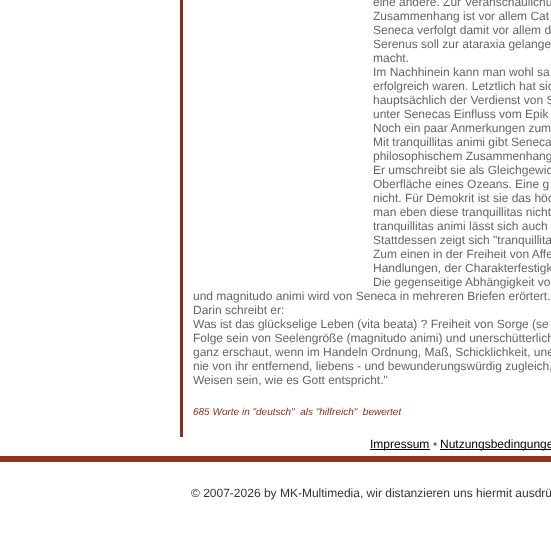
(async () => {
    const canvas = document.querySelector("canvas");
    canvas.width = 551;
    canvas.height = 537;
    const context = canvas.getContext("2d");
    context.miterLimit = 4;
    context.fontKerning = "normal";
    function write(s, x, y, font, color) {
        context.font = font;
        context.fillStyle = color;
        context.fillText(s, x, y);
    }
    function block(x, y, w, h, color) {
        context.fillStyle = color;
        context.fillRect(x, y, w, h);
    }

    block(0, 0, 551, 537, "rgb(255, 255, 255)");
    block(180, 0, 3, 437, "rgb(128, 51, 33)");
    write("eine andere. Zur Veranschaulichu", 373, 6, "12px Liberation Sans", "rgb(102, 102, 102)");
    write("Zusammenhang ist vor allem Cat", 373, 20, "12px Liberation Sans", "rgb(102, 102, 102)");
    write("Seneca verfolgt damit vor allem d", 373, 34, "12px Liberation Sans", "rgb(102, 102, 102)");
    write("Serenus soll zur ataraxia gelange", 373, 48, "12px Liberation Sans", "rgb(102, 102, 102)");
    write("macht.", 373, 62, "12px Liberation Sans", "rgb(102, 102, 102)");
    write("Im Nachhinein kann man wohl sa", 373, 76, "12px Liberation Sans", "rgb(102, 102, 102)");
    write("erfolgreich waren. Letztlich hat sic", 373, 90, "12px Liberation Sans", "rgb(102, 102, 102)");
    write("hauptsächlich der Verdienst von S", 373, 104, "12px Liberation Sans", "rgb(102, 102, 102)");
    write("unter Senecas Einfluss vom Epik", 373, 118, "12px Liberation Sans", "rgb(102, 102, 102)");
    write("Noch ein paar Anmerkungen zum", 373, 132, "12px Liberation Sans", "rgb(102, 102, 102)");
    write("Mit tranquillitas animi gibt Seneca", 373, 146, "12px Liberation Sans", "rgb(102, 102, 102)");
    write("philosophischem Zusammenhang", 373, 160, "12px Liberation Sans", "rgb(102, 102, 102)");
    write("Er umschreibt sie als Gleichgewic", 373, 174, "12px Liberation Sans", "rgb(102, 102, 102)");
    write("Oberfläche eines Ozeans. Eine g", 373, 188, "12px Liberation Sans", "rgb(102, 102, 102)");
    write("nicht. Für Demokrit ist sie das höc", 373, 202, "12px Liberation Sans", "rgb(102, 102, 102)");
    write("man eben diese tranquillitas nicht", 373, 216, "12px Liberation Sans", "rgb(102, 102, 102)");
    write("tranquillitas animi lässt sich auch", 373, 230, "12px Liberation Sans", "rgb(102, 102, 102)");
    write("Stattdessen zeigt sich \"tranquillita", 373, 244, "12px Liberation Sans", "rgb(102, 102, 102)");
    write("Zum einen in der Freiheit von Affe", 373, 258, "12px Liberation Sans", "rgb(102, 102, 102)");
    write("Handlungen, der Charakterfestigk", 373, 272, "12px Liberation Sans", "rgb(102, 102, 102)");
    write("Die gegenseitige Abhängigkeit vo", 373, 286, "12px Liberation Sans", "rgb(102, 102, 102)");
    write("und magnitudo animi wird von Seneca in mehreren Briefen erörtert.", 193, 300, "12px Liberation Sans", "rgb(102, 102, 102)");
    write("Darin schreibt er:", 193, 314, "12px Liberation Sans", "rgb(102, 102, 102)");
    write("Was ist das glückselige Leben (vita beata) ? Freiheit von Sorge (se", 193, 328, "12px Liberation Sans", "rgb(102, 102, 102)");
    write("Folge sein von Seelengröße (magnitudo animi) und unerschütterlich", 193, 342, "12px Liberation Sans", "rgb(102, 102, 102)");
    write("ganz erschaut, wenn im Handeln Ordnung, Maß, Schicklichkeit, une", 193, 356, "12px Liberation Sans", "rgb(102, 102, 102)");
    write("nie von ihr entfernend, liebens - und bewunderungswürdig zugleich,", 193, 370, "12px Liberation Sans", "rgb(102, 102, 102)");
    write("Weisen sein, wie es Gott entspricht.\"", 193, 384, "12px Liberation Sans", "rgb(102, 102, 102)");
    write("685 Worte in \"deutsch\"  als \"hilfreich\"  bewertet", 193, 415, "italic 10px Liberation Sans", "rgb(139, 46, 28)");
    block(0, 456, 551, 6, "rgb(144, 50, 32)");
    block(370, 449, 60, 1, "rgb(0, 0, 0)");
    write("Impressum", 370, 448, "12px Liberation Sans", "rgb(0, 0, 0)");
    write("•", 433, 448, "12px Liberation Sans", "rgb(102, 102, 102)");
    block(440, 449, 111, 1, "rgb(0, 0, 0)");
    write("Nutzungsbedingunge", 440, 448, "12px Liberation Sans", "rgb(0, 0, 0)");
    write("© 2007-2026 by MK-Multimedia, wir distanzieren uns hiermit ausdrü", 191, 497, "12px Liberation Sans", "rgb(51, 51, 51)");
})();
